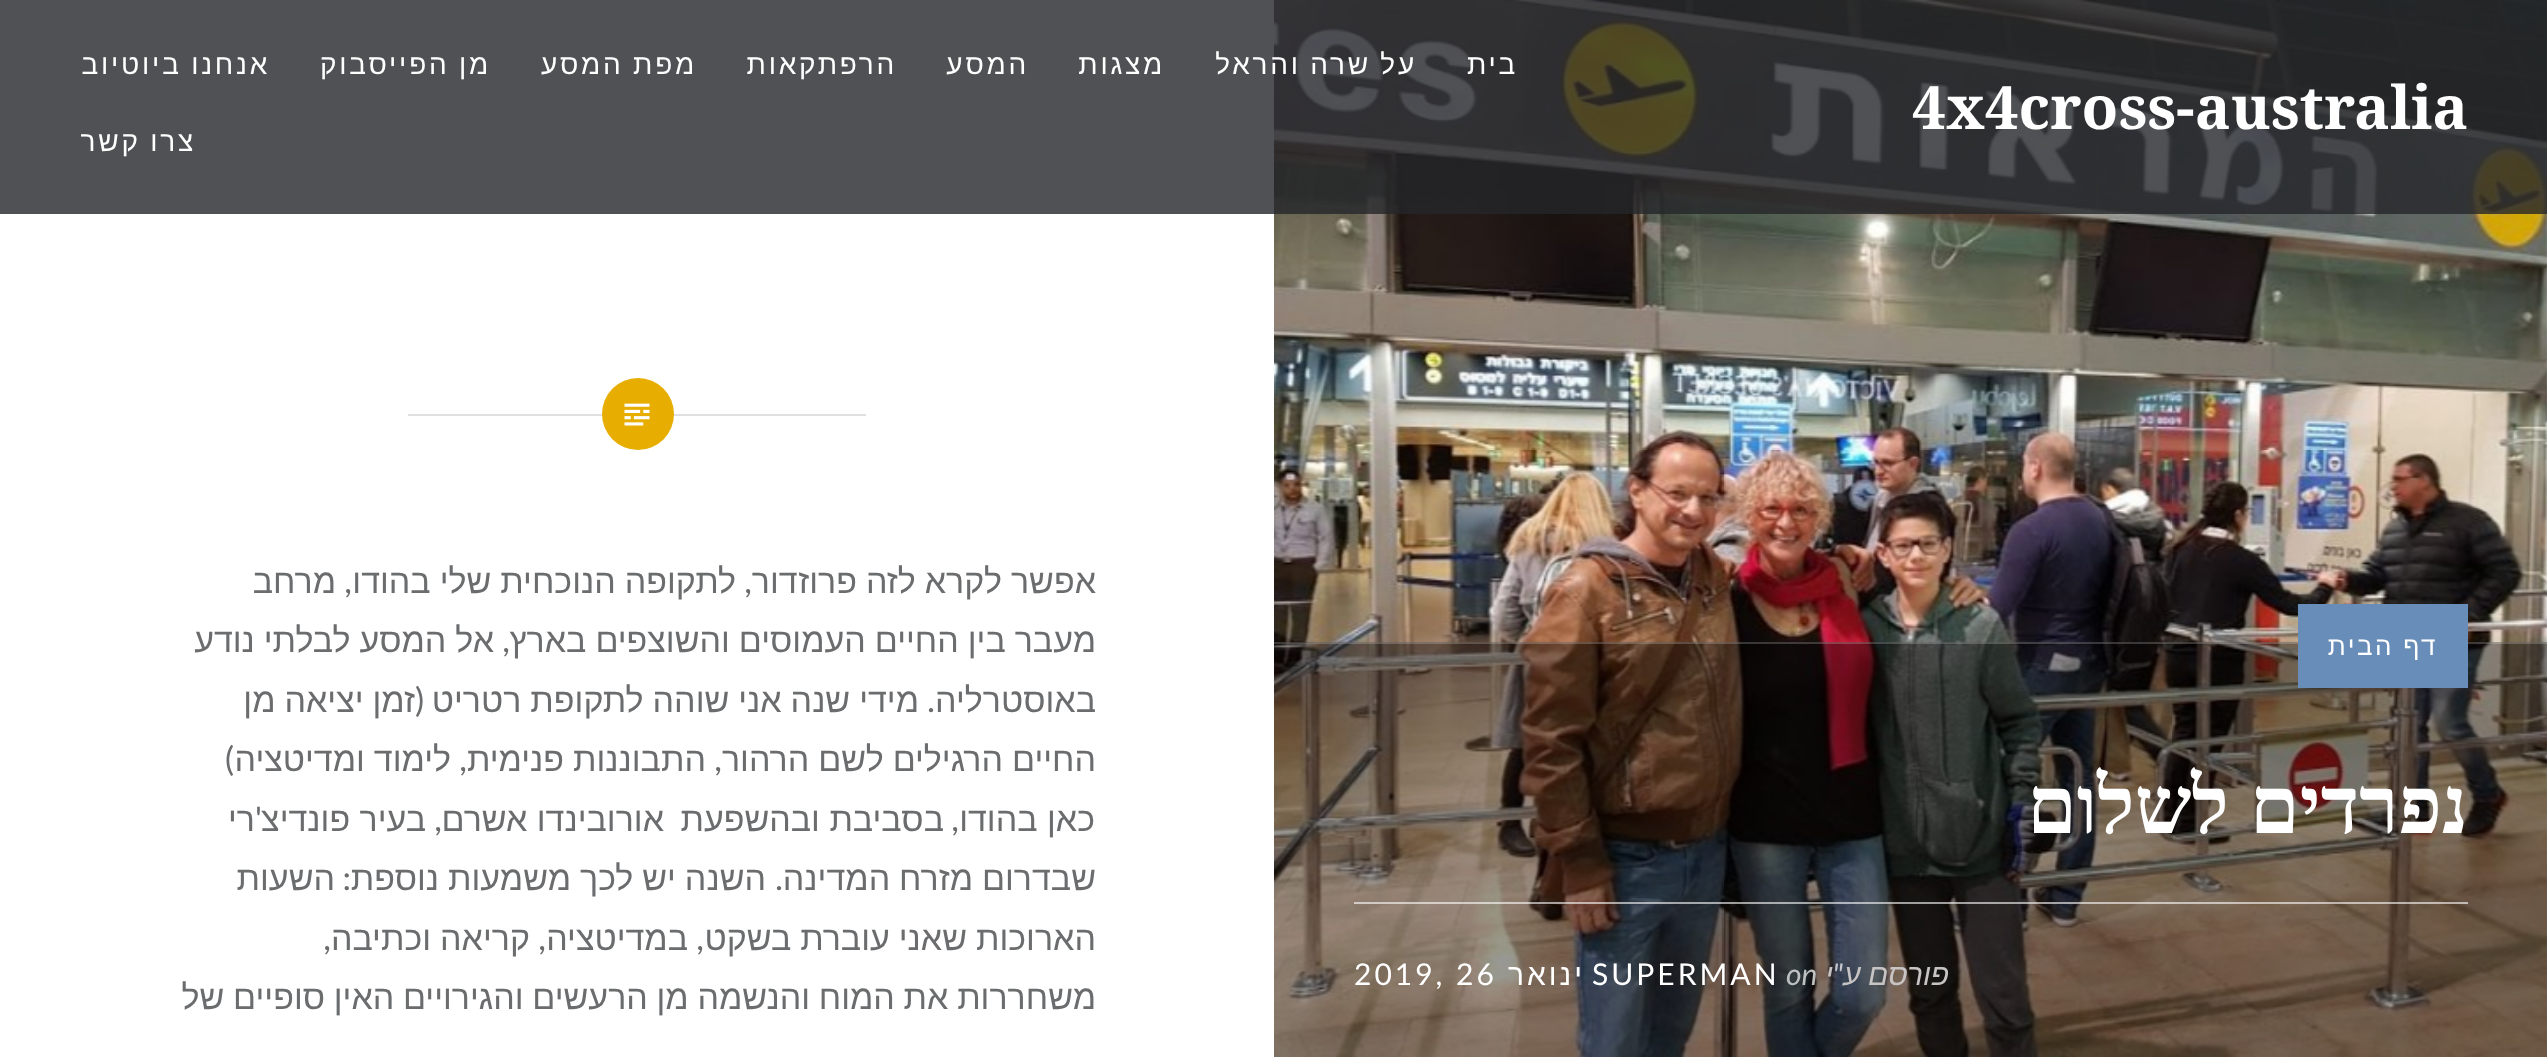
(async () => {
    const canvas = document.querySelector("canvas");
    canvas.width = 2547;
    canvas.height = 1057;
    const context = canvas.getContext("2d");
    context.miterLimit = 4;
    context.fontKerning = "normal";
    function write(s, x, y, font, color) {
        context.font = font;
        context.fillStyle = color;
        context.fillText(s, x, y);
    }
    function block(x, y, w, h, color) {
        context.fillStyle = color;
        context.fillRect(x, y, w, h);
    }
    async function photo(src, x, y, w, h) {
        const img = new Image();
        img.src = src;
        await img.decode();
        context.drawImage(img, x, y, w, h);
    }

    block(0, 0, 2547, 1057, "rgb(255, 255, 255)");
    await photo("media/1.png", 1274, 0, 1273, 1057);
    block(0, 0, 2547, 214, "rgba(36, 38, 41, 0.8)");
    write("4x4cross-australia", 1912, 129, "bold 60px Noto Serif", "rgb(255, 255, 255)");
    context.letterSpacing = "2.75px";
    context.direction = "rtl";
    write("בית", 1518, 74, "28px Liberation Sans", "rgb(255, 255, 255)");
    context.wordSpacing = "-1px";
    write("על שרה והראל", 1417, 74, "28px Liberation Sans", "rgb(255, 255, 255)");
    context.wordSpacing = "0px";
    write("מצגות", 1165, 74, "28px Liberation Sans", "rgb(255, 255, 255)");
    write("המסע", 1029, 74, "28px Liberation Sans", "rgb(255, 255, 255)");
    write("הרפתקאות", 897, 74, "28px Liberation Sans", "rgb(255, 255, 255)");
    context.wordSpacing = "-1px";
    write("מפת המסע", 697, 74, "28px Liberation Sans", "rgb(255, 255, 255)");
    write("מן הפייסבוק", 491, 74, "28px Liberation Sans", "rgb(255, 255, 255)");
    write("אנחנו ביוטיוב", 270, 74, "28px Liberation Sans", "rgb(255, 255, 255)");
    write("צרו קשר", 196, 151, "28px Liberation Sans", "rgb(255, 255, 255)");
    block(408, 414, 458, 2, "rgb(224, 224, 224)");
    context.fillStyle = "rgb(231, 174, 1)";
    context.beginPath();
    context.arc(638, 414, 36, 0, Math.PI * 2);
    context.fill();
    await photo("media/2.png", 624, 403, 26, 23);
    block(1274, 642, 1273, 415, "rgba(0, 0, 0, 0.4)");
    block(1274, 642, 1273, 2, "rgba(255, 255, 255, 0.2)");
    block(2298, 604, 170, 84, "rgb(103, 141, 184)");
    context.letterSpacing = "2.5px";
    context.wordSpacing = "-0.5px";
    write("דף הבית", 2438, 655, "26px Liberation Sans", "rgb(255, 255, 255)");
    context.letterSpacing = "0px";
    context.wordSpacing = "1px";
    write("נפרדים לשלום", 2468, 833, "bold 80px Liberation Serif", "rgb(255, 255, 255)");
    block(1354, 902, 1114, 2, "rgba(255, 255, 255, 0.6)");
    context.wordSpacing = "0px";
    write("\"", 1843, 985, "italic 30px Lato", "rgb(196, 198, 204)");
    context.wordSpacing = "-1px";
    write("פורסם ע", 1949, 985, "italic 30px Liberation Sans", "rgb(199, 196, 195)");
    context.wordSpacing = "0px";
    write("י", 1833, 985, "italic 30px Liberation Sans", "rgb(199, 196, 195)");
    context.direction = "ltr";
    write("on", 1786, 985, "italic 30px Lato", "rgb(191, 192, 193)");
    context.letterSpacing = "3px";
    write("SUPERMAN", 1592, 985, "30px Lato", "rgb(255, 255, 255)");
    context.direction = "rtl";
    write("ינואר", 1585, 985, "30px Liberation Sans", "rgb(255, 255, 255)");
    context.direction = "ltr";
    write("2019, 26", 1354, 985, "30px Lato", "rgb(255, 255, 255)");
    context.letterSpacing = "0px";
    context.wordSpacing = "-0.5px";
    context.direction = "rtl";
    write("אפשר לקרא לזה פרוזדור", 1096, 593, "34px Liberation Sans", "rgb(106, 108, 110)");
    context.wordSpacing = "0px";
    write(",", 752, 593, "34px Lato", "rgb(106, 108, 110)");
    context.wordSpacing = "-0.5px";
    write("לתקופה הנוכחית שלי בהודו", 736, 593, "34px Liberation Sans", "rgb(106, 108, 110)");
    context.wordSpacing = "0px";
    write(",", 352, 593, "34px Lato", "rgb(106, 108, 110)");
    write("מרחב", 336, 593, "34px Liberation Sans", "rgb(106, 108, 110)");
    context.wordSpacing = "-0.5px";
    write("מעבר בין החיים העמוסים והשוצפים בארץ", 1096, 652, "34px Liberation Sans", "rgb(106, 108, 110)");
    context.wordSpacing = "0px";
    write(",", 510, 652, "34px Lato", "rgb(106, 108, 110)");
    context.wordSpacing = "-0.5px";
    write("אל המסע לבלתי נודע", 494, 652, "34px Liberation Sans", "rgb(106, 108, 110)");
    context.wordSpacing = "0px";
    write("באוסטרליה", 1096, 712, "34px Liberation Sans", "rgb(106, 108, 110)");
    write(".", 935, 712, "34px Lato", "rgb(106, 108, 110)");
    context.wordSpacing = "-0.5px";
    write("מידי שנה אני שוהה לתקופת רטריט", 919, 712, "34px Liberation Sans", "rgb(106, 108, 110)");
    context.wordSpacing = "0px";
    write("(", 424, 712, "34px Lato", "rgb(106, 108, 110)");
    context.wordSpacing = "-0.5px";
    write("זמן יציאה מן", 415, 712, "34px Liberation Sans", "rgb(106, 108, 110)");
    write("החיים הרגילים לשם הרהור", 1096, 771, "34px Liberation Sans", "rgb(106, 108, 110)");
    context.wordSpacing = "0px";
    write(",", 722, 771, "34px Lato", "rgb(106, 108, 110)");
    context.wordSpacing = "-0.5px";
    write("התבוננות פנימית", 706, 771, "34px Liberation Sans", "rgb(106, 108, 110)");
    context.wordSpacing = "0px";
    write(",", 467, 771, "34px Lato", "rgb(106, 108, 110)");
    context.wordSpacing = "-0.5px";
    write("לימוד ומדיטציה", 451, 771, "34px Liberation Sans", "rgb(106, 108, 110)");
    context.wordSpacing = "0px";
    write(")", 234, 771, "34px Lato", "rgb(106, 108, 110)");
    write("כאן בהודו", 1095, 831, "34px Liberation Sans", "rgb(106, 108, 110)");
    write(",", 959, 831, "34px Lato", "rgb(106, 108, 110)");
    write("בסביבת ובהשפעת", 944, 831, "34px Liberation Sans", "rgb(106, 108, 110)");
    write("אורובינדו אשרם", 664, 831, "34px Liberation Sans", "rgb(106, 108, 110)");
    write(",", 442, 831, "34px Lato", "rgb(106, 108, 110)");
    write("בעיר פונדיצ", 426, 831, "34px Liberation Sans", "rgb(106, 108, 110)");
    write("'", 262, 831, "34px Lato", "rgb(106, 108, 110)");
    write("רי", 255, 831, "34px Liberation Sans", "rgb(106, 108, 110)");
    context.wordSpacing = "-0.5px";
    write("שבדרום מזרח המדינה", 1096, 890, "34px Liberation Sans", "rgb(106, 108, 110)");
    context.wordSpacing = "0px";
    write(".", 783, 890, "34px Lato", "rgb(106, 108, 110)");
    context.wordSpacing = "-0.5px";
    write("השנה יש לכך משמעות נוספת", 766, 890, "34px Liberation Sans", "rgb(106, 108, 110)");
    context.wordSpacing = "0px";
    write(":", 351, 890, "34px Lato", "rgb(106, 108, 110)");
    write("השעות", 335, 890, "34px Liberation Sans", "rgb(106, 108, 110)");
    context.wordSpacing = "-0.5px";
    write("הארוכות שאני עוברת בשקט", 1096, 950, "34px Liberation Sans", "rgb(106, 108, 110)");
    context.wordSpacing = "0px";
    write(",", 704, 950, "34px Lato", "rgb(106, 108, 110)");
    write("במדיטציה", 688, 950, "34px Liberation Sans", "rgb(106, 108, 110)");
    write(",", 546, 950, "34px Lato", "rgb(106, 108, 110)");
    context.wordSpacing = "-0.5px";
    write("קריאה וכתיבה", 530, 950, "34px Liberation Sans", "rgb(106, 108, 110)");
    context.wordSpacing = "0px";
    write(",", 331, 950, "34px Lato", "rgb(106, 108, 110)");
    context.wordSpacing = "-0.75px";
    write("משחררות את המוח והנשמה מן הרעשים והגירויים האין סופיים של", 1096, 1009, "34px Liberation Sans", "rgb(106, 108, 110)");
})();
